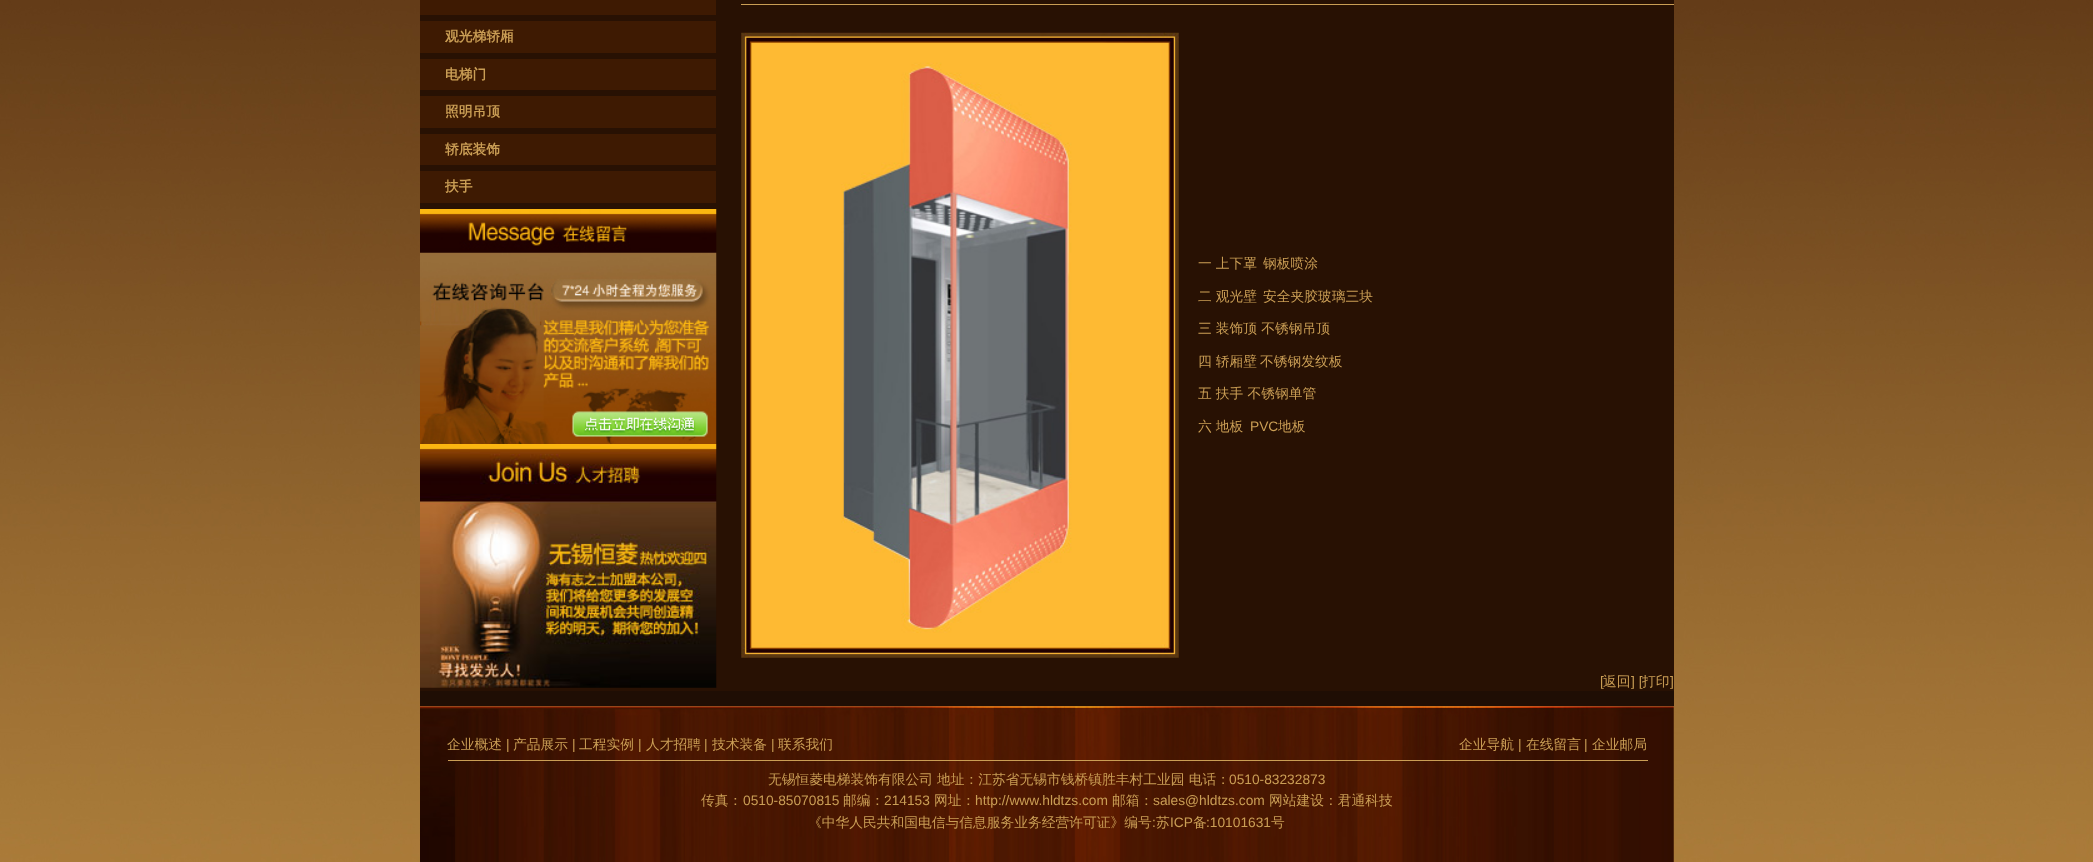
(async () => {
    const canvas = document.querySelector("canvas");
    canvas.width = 2093;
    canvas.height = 862;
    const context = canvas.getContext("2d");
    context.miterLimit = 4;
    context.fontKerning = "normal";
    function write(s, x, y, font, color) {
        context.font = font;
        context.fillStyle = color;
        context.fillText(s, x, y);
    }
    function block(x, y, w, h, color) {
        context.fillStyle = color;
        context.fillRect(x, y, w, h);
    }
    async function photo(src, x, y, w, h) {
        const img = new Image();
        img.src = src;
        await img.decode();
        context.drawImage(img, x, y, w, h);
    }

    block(0, 0, 2093, 862, "rgb(255, 255, 255)");
    await photo("media/1.png", 0, 0, 2093, 862);
    block(420, 0, 1254, 691, "rgb(40, 17, 3)");
    block(420, 0, 296, 15, "rgb(62, 26, 2)");
    block(420, 21, 296, 32, "rgb(62, 26, 2)");
    write("观光梯轿厢", 445, 41, "bold 13.75px WenQuanYi Zen Hei", "rgb(202, 158, 85)");
    block(420, 59, 296, 31, "rgb(62, 26, 2)");
    write("电梯门", 445, 79, "bold 13.75px WenQuanYi Zen Hei", "rgb(202, 158, 85)");
    block(420, 96, 296, 32, "rgb(62, 26, 2)");
    write("照明吊顶", 445, 116, "bold 13.75px WenQuanYi Zen Hei", "rgb(202, 158, 85)");
    block(420, 134, 296, 31, "rgb(62, 26, 2)");
    write("轿底装饰", 445, 154, "bold 13.75px WenQuanYi Zen Hei", "rgb(202, 158, 85)");
    block(420, 171, 296, 32, "rgb(62, 26, 2)");
    write("扶手", 445, 191, "bold 13.75px WenQuanYi Zen Hei", "rgb(202, 158, 85)");
    await photo("media/2.png", 420, 209, 297, 235);
    await photo("media/3.png", 420, 444, 297, 244);
    block(741, 4, 933, 1, "rgb(202, 158, 85)");
    await photo("media/4.png", 741, 32, 438, 626);
    write("一 上下罩", 1198, 268, "500 13.75px WenQuanYi Zen Hei", "rgb(202, 158, 85)");
    write("钢板喷涂", 1263, 268, "500 13.75px WenQuanYi Zen Hei", "rgb(202, 158, 85)");
    write("二 观光壁", 1198, 301, "500 13.75px WenQuanYi Zen Hei", "rgb(202, 158, 85)");
    write("安全夹胶玻璃三块", 1263, 301, "500 13.75px WenQuanYi Zen Hei", "rgb(202, 158, 85)");
    write("三 装饰顶 不锈钢吊顶", 1198, 333, "500 13.75px WenQuanYi Zen Hei", "rgb(202, 158, 85)");
    write("四 轿厢壁", 1198, 366, "500 13.75px WenQuanYi Zen Hei", "rgb(202, 158, 85)");
    write("不锈钢发纹板", 1260, 366, "500 13.75px WenQuanYi Zen Hei", "rgb(202, 158, 85)");
    write("五 扶手 不锈钢单管", 1198, 398, "500 13.75px WenQuanYi Zen Hei", "rgb(202, 158, 85)");
    write("六 地板", 1198, 431, "500 13.75px WenQuanYi Zen Hei", "rgb(202, 158, 85)");
    write("PVC", 1250, 431, "13.75px Liberation Sans", "rgb(202, 158, 85)");
    write("地板", 1278, 431, "500 13.75px WenQuanYi Zen Hei", "rgb(202, 158, 85)");
    write("[", 1600, 686, "13.75px Liberation Sans", "rgb(202, 158, 85)");
    write("返回", 1603, 686, "500 13.75px WenQuanYi Zen Hei", "rgb(202, 158, 85)");
    write("] [", 1631, 686, "13.75px Liberation Sans", "rgb(202, 158, 85)");
    write("打印", 1642, 686, "500 13.75px WenQuanYi Zen Hei", "rgb(202, 158, 85)");
    write("]", 1670, 686, "13.75px Liberation Sans", "rgb(202, 158, 85)");
    block(420, 691, 1254, 15, "rgb(31, 14, 4)");
    await photo("media/5.png", 420, 706, 1254, 156);
    write("企业概述", 447, 749, "500 13.75px WenQuanYi Zen Hei", "rgb(202, 158, 85)");
    write("|", 506, 749, "13.75px Liberation Sans", "rgb(202, 158, 85)");
    write("产品展示", 513, 749, "500 13.75px WenQuanYi Zen Hei", "rgb(202, 158, 85)");
    write("|", 572, 749, "13.75px Liberation Sans", "rgb(202, 158, 85)");
    write("工程实例", 579, 749, "500 13.75px WenQuanYi Zen Hei", "rgb(202, 158, 85)");
    write("|", 638, 749, "13.75px Liberation Sans", "rgb(202, 158, 85)");
    write("人才招聘", 646, 749, "500 13.75px WenQuanYi Zen Hei", "rgb(202, 158, 85)");
    write("|", 704, 749, "13.75px Liberation Sans", "rgb(202, 158, 85)");
    write("技术装备", 712, 749, "500 13.75px WenQuanYi Zen Hei", "rgb(202, 158, 85)");
    write("|", 771, 749, "13.75px Liberation Sans", "rgb(202, 158, 85)");
    write("联系我们", 778, 749, "500 13.75px WenQuanYi Zen Hei", "rgb(202, 158, 85)");
    write("企业导航", 1459, 749, "500 13.75px WenQuanYi Zen Hei", "rgb(202, 158, 85)");
    write("|", 1518, 749, "13.75px Liberation Sans", "rgb(202, 158, 85)");
    write("在线留言", 1526, 749, "500 13.75px WenQuanYi Zen Hei", "rgb(202, 158, 85)");
    write("|", 1584, 749, "13.75px Liberation Sans", "rgb(202, 158, 85)");
    write("企业邮局", 1592, 749, "500 13.75px WenQuanYi Zen Hei", "rgb(202, 158, 85)");
    block(448, 760, 1200, 1, "rgb(202, 158, 85)");
    write("无锡恒菱电梯装饰有限公司 地址：江苏省无锡市钱桥镇胜丰村工业园 电话：", 768, 784, "500 13.75px WenQuanYi Zen Hei", "rgb(202, 158, 85)");
    write("0510-83232873", 1229, 784, "13.75px Liberation Sans", "rgb(202, 158, 85)");
    write("传真：", 701, 805, "500 13.75px WenQuanYi Zen Hei", "rgb(202, 158, 85)");
    write("0510-85070815", 743, 805, "13.75px Liberation Sans", "rgb(202, 158, 85)");
    write("邮编：", 843, 805, "500 13.75px WenQuanYi Zen Hei", "rgb(202, 158, 85)");
    write("214153", 884, 805, "13.75px Liberation Sans", "rgb(202, 158, 85)");
    write("网址：", 934, 805, "500 13.75px WenQuanYi Zen Hei", "rgb(202, 158, 85)");
    write("http://www.hldtzs.com", 975, 805, "13.75px Liberation Sans", "rgb(202, 158, 85)");
    write("邮箱：", 1112, 805, "500 13.75px WenQuanYi Zen Hei", "rgb(202, 158, 85)");
    write("sales@hldtzs.com", 1153, 805, "13.75px Liberation Sans", "rgb(202, 158, 85)");
    write("网站建设：君通科技", 1269, 805, "500 13.75px WenQuanYi Zen Hei", "rgb(202, 158, 85)");
    write("《中华人民共和国电信与信息服务业务经营许可证》编号", 808, 827, "500 13.75px WenQuanYi Zen Hei", "rgb(202, 158, 85)");
    write(":", 1152, 827, "13.75px Liberation Sans", "rgb(202, 158, 85)");
    write("苏", 1156, 827, "500 13.75px WenQuanYi Zen Hei", "rgb(202, 158, 85)");
    write("ICP", 1170, 827, "13.75px Liberation Sans", "rgb(202, 158, 85)");
    write("备", 1193, 827, "500 13.75px WenQuanYi Zen Hei", "rgb(202, 158, 85)");
    write(":10101631", 1206, 827, "13.75px Liberation Sans", "rgb(202, 158, 85)");
    write("号", 1271, 827, "500 13.75px WenQuanYi Zen Hei", "rgb(202, 158, 85)");
})();
